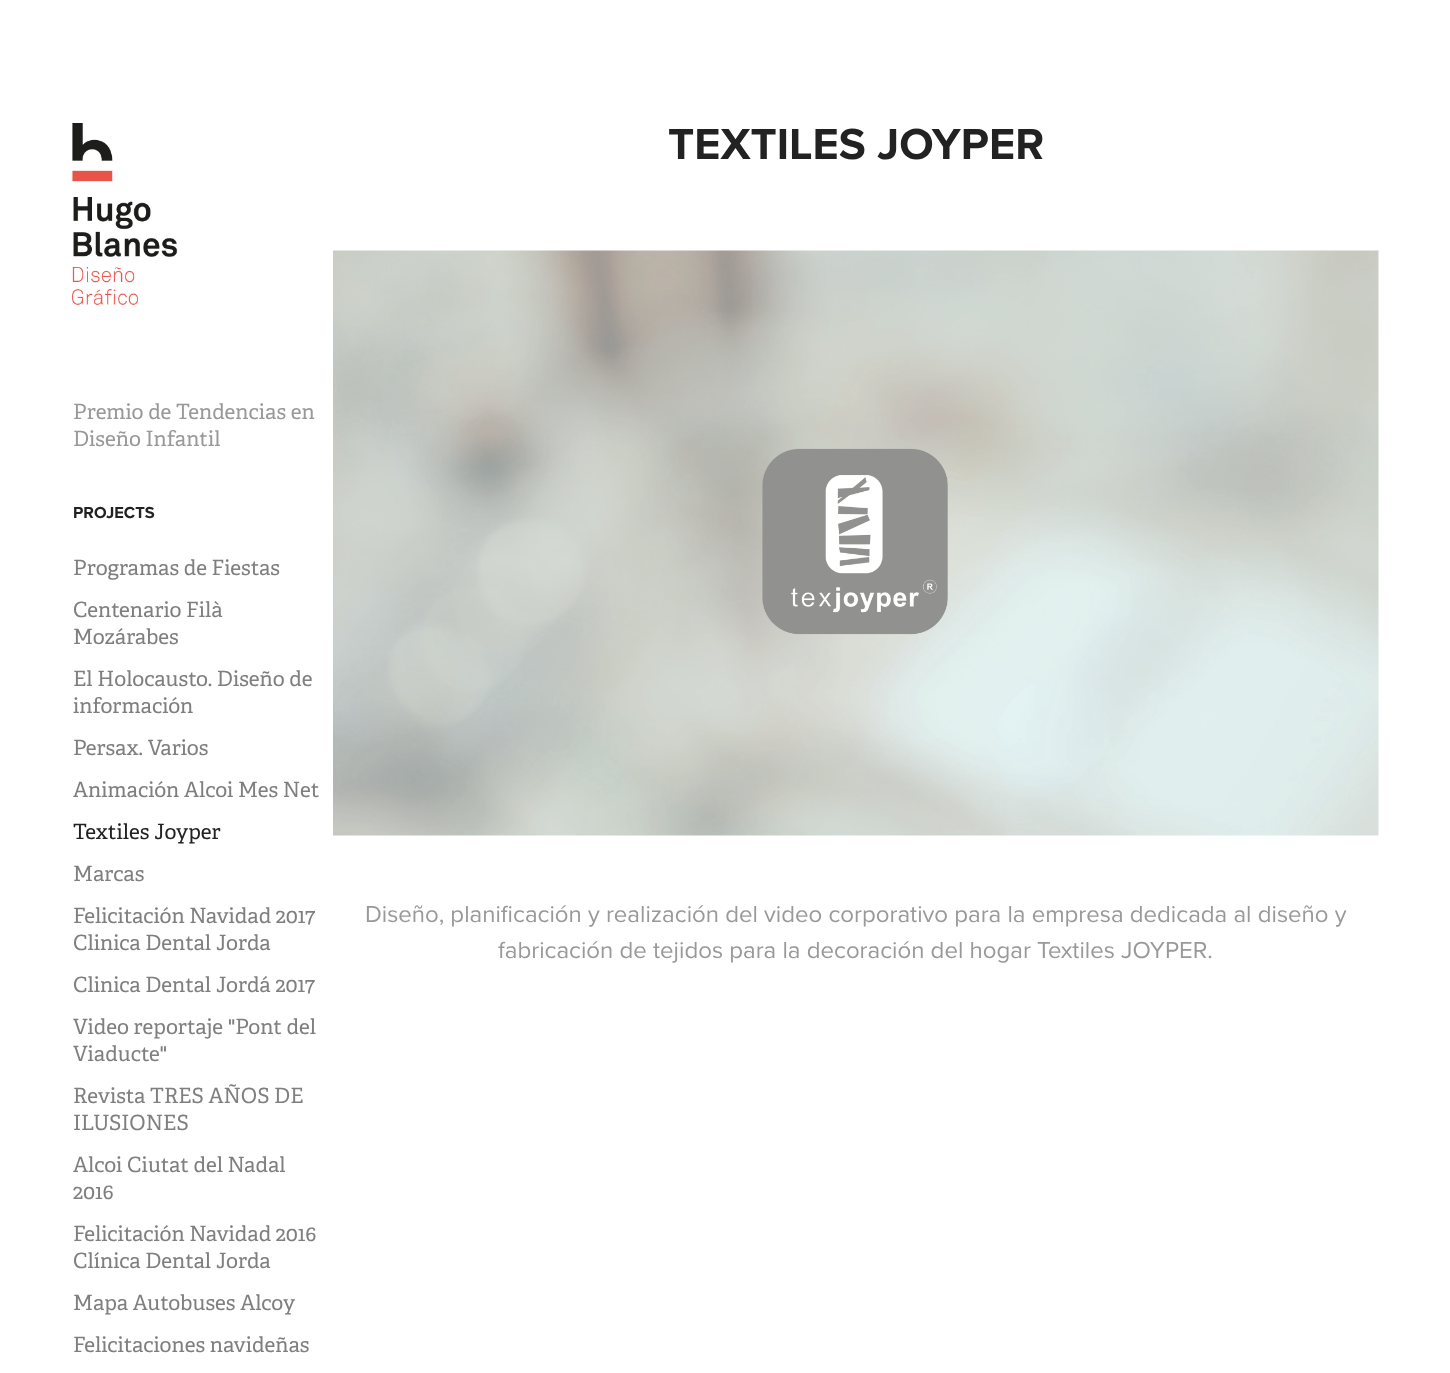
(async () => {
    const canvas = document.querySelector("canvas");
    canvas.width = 1450;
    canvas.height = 1373;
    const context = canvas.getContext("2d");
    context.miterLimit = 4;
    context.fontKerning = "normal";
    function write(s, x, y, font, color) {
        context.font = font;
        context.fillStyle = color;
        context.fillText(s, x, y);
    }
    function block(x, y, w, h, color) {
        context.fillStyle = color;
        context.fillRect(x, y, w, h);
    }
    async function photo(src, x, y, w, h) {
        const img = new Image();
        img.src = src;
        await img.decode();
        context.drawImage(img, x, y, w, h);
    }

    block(0, 0, 1450, 1373, "rgb(255, 255, 255)");
    await photo("media/1.png", 72, 123, 106, 182);
    write("Premio de Tendencias en", 73, 419, "21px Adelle", "rgb(153, 153, 153)");
    write("Diseño Infantil", 73, 446, "21px Adelle", "rgb(153, 153, 153)");
    write("PROJECTS", 73, 518, "bold 16.5px Proxima Nova", "rgb(34, 34, 34)");
    write("Programas de Fiestas", 73, 575, "21px Adelle", "rgb(127, 127, 127)");
    write("Centenario Filà", 73, 617, "21px Adelle", "rgb(127, 127, 127)");
    write("Mozárabes", 73, 644, "21px Adelle", "rgb(127, 127, 127)");
    write("El Holocausto. Diseño de", 73, 686, "21px Adelle", "rgb(127, 127, 127)");
    write("información", 73, 713, "21px Adelle", "rgb(127, 127, 127)");
    write("Persax. Varios", 73, 755, "21px Adelle", "rgb(127, 127, 127)");
    write("Animación Alcoi Mes Net", 73, 797, "21px Adelle", "rgb(127, 127, 127)");
    write("Textiles Joyper", 73, 839, "21px Adelle", "rgb(34, 34, 34)");
    write("Marcas", 73, 881, "21px Adelle", "rgb(127, 127, 127)");
    write("Felicitación Navidad 2017", 73, 923, "21px Adelle", "rgb(127, 127, 127)");
    write("Clinica Dental Jorda", 73, 950, "21px Adelle", "rgb(127, 127, 127)");
    write("Clinica Dental Jordá 2017", 73, 992, "21px Adelle", "rgb(127, 127, 127)");
    write("Video reportaje \"Pont del", 73, 1034, "21px Adelle", "rgb(127, 127, 127)");
    write("Viaducte\"", 73, 1061, "21px Adelle", "rgb(127, 127, 127)");
    write("Revista TRES AÑOS DE", 73, 1103, "21px Adelle", "rgb(127, 127, 127)");
    write("ILUSIONES", 73, 1130, "21px Adelle", "rgb(127, 127, 127)");
    write("Alcoi Ciutat del Nadal", 73, 1172, "21px Adelle", "rgb(127, 127, 127)");
    write("2016", 73, 1199, "21px Adelle", "rgb(127, 127, 127)");
    write("Felicitación Navidad 2016", 73, 1241, "21px Adelle", "rgb(127, 127, 127)");
    write("Clínica Dental Jorda", 73, 1268, "21px Adelle", "rgb(127, 127, 127)");
    write("Mapa Autobuses Alcoy", 73, 1310, "21px Adelle", "rgb(127, 127, 127)");
    write("Felicitaciones navideñas", 73, 1352, "21px Adelle", "rgb(127, 127, 127)");
    write("TEXTILES JOYPER", 668, 159, "bold 45px Proxima Nova", "rgb(34, 34, 34)");
    await photo("media/2.png", 333, 250, 1046, 586);
    write("Diseño, planificación y realización del video corporativo para la empresa dedicada al diseño y", 365, 922, "24px Proxima Nova", "rgb(153, 153, 153)");
    write("fabricación de tejidos para la decoración del hogar Textiles JOYPER.", 498, 958, "24px Proxima Nova", "rgb(153, 153, 153)");
})();
